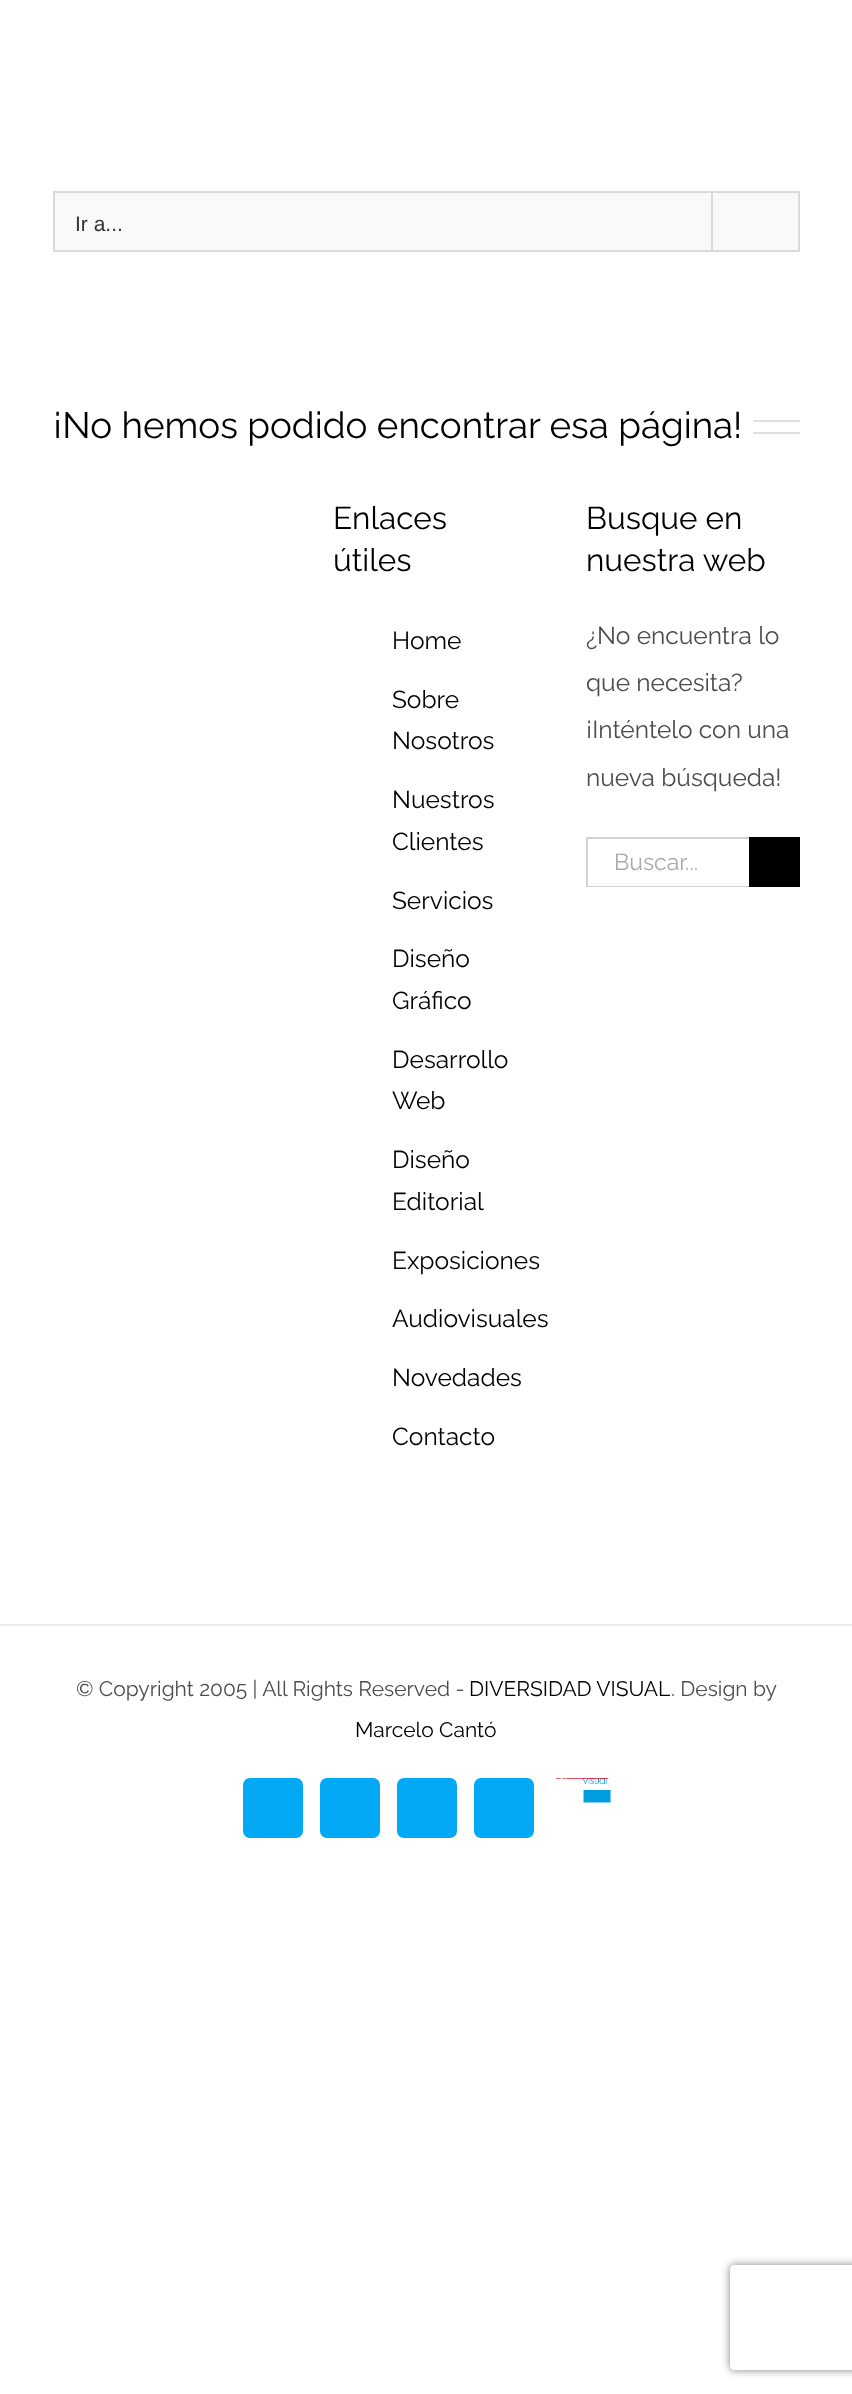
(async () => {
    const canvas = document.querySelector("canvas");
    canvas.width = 852;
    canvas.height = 2394;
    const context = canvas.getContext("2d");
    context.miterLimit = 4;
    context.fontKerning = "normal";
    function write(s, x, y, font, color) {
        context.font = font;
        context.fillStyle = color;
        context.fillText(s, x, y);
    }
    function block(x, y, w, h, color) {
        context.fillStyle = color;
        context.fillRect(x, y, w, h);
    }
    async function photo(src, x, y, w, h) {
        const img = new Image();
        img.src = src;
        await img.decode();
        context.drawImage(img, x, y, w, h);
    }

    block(0, 0, 852, 2394, "rgb(255, 255, 255)");
    context.fillStyle = "rgb(249, 249, 249)";
    context.beginPath();
    context.rect(54, 192, 745, 59);
    context.fill();
    context.strokeStyle = "rgb(218, 218, 218)";
    context.lineWidth = 2;
    context.stroke();
    write("Ir a...", 75, 231, "21px Liberation Sans", "rgb(51, 51, 51)");
    block(711, 193, 2, 57, "rgb(218, 218, 218)");
    write("¡No hemos podido encontrar esa página!", 53, 438, "36.75px Raleway", "rgb(0, 0, 0)");
    block(753, 420, 47, 2, "rgb(224, 222, 222)");
    block(753, 432, 47, 2, "rgb(224, 222, 222)");
    write("Enlaces", 333, 529, "31.5px Raleway", "rgb(0, 0, 0)");
    write("útiles", 333, 571, "31.5px Raleway", "rgb(0, 0, 0)");
    write("Home", 392, 649, "24.5px Raleway", "rgb(0, 0, 0)");
    write("Sobre", 392, 708, "24.5px Raleway", "rgb(0, 0, 0)");
    write("Nosotros", 392, 749, "24.5px Raleway", "rgb(0, 0, 0)");
    write("Nuestros", 392, 808, "24.5px Raleway", "rgb(0, 0, 0)");
    write("Clientes", 392, 850, "24.5px Raleway", "rgb(0, 0, 0)");
    write("Servicios", 392, 909, "24.5px Raleway", "rgb(0, 0, 0)");
    write("Diseño", 392, 967, "24.5px Raleway", "rgb(0, 0, 0)");
    write("Gráfico", 392, 1009, "24.5px Raleway", "rgb(0, 0, 0)");
    write("Desarrollo", 392, 1068, "24.5px Raleway", "rgb(0, 0, 0)");
    write("Web", 392, 1109, "24.5px Raleway", "rgb(0, 0, 0)");
    write("Diseño", 392, 1168, "24.5px Raleway", "rgb(0, 0, 0)");
    write("Editorial", 392, 1210, "24.5px Raleway", "rgb(0, 0, 0)");
    write("Exposiciones", 392, 1269, "24.5px Raleway", "rgb(0, 0, 0)");
    write("Audiovisuales", 392, 1327, "24.5px Raleway", "rgb(0, 0, 0)");
    write("Novedades", 392, 1386, "24.5px Raleway", "rgb(0, 0, 0)");
    write("Contacto", 392, 1445, "24.5px Raleway", "rgb(0, 0, 0)");
    write("Busque en", 586, 529, "31.5px Raleway", "rgb(0, 0, 0)");
    write("nuestra web", 586, 571, "31.5px Raleway", "rgb(0, 0, 0)");
    write("¿No encuentra lo", 586, 644, "24.5px Raleway", "rgb(76, 76, 76)");
    write("que necesita?", 586, 691, "24.5px Raleway", "rgb(76, 76, 76)");
    write("¡Inténtelo con una", 586, 738, "24.5px Raleway", "rgb(76, 76, 76)");
    write("nueva búsqueda!", 586, 786, "24.5px Raleway", "rgb(76, 76, 76)");
    block(586, 837, 163, 2, "rgb(210, 210, 210)");
    block(586, 886, 163, 1, "rgb(210, 210, 210)");
    block(586, 837, 2, 50, "rgb(210, 210, 210)");
    write("Buscar...", 614, 870, "23px Raleway", "rgb(170, 169, 169)");
    block(749, 837, 51, 50, "rgb(0, 0, 0)");
    block(0, 1624, 852, 2, "rgb(234, 234, 234)");
    write("© Copyright 2005 | All Rights Reserved -", 76, 1696, "21px Raleway", "rgb(76, 76, 76)");
    write("DIVERSIDAD VISUAL", 469, 1696, "21px Raleway", "rgb(0, 0, 0)");
    write(". Design by", 671, 1696, "21px Raleway", "rgb(76, 76, 76)");
    write("Marcelo Cantó", 355, 1737, "21px Raleway", "rgb(0, 0, 0)");
    context.fillStyle = "rgb(3, 169, 244)";
    context.beginPath();
    context.roundRect(244, 1779, 58, 58, 6);
    context.fill();
    context.strokeStyle = "rgb(3, 169, 244)";
    context.stroke();
    context.beginPath();
    context.roundRect(321, 1779, 58, 58, 6);
    context.fill();
    context.stroke();
    context.beginPath();
    context.roundRect(398, 1779, 58, 58, 6);
    context.fill();
    context.stroke();
    context.beginPath();
    context.roundRect(475, 1779, 58, 58, 6);
    context.fill();
    context.stroke();
    await photo("media/1.png", 556, 1778, 55, 25);
    context.save();
    context.beginPath();
    context.moveTo(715, 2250);
    context.lineTo(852, 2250);
    context.lineTo(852, 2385);
    context.lineTo(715, 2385);
    context.closePath();
    context.moveTo(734, 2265);
    context.lineTo(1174, 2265);
    context.bezierCurveTo(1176, 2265, 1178, 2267, 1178, 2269);
    context.lineTo(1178, 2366);
    context.bezierCurveTo(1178, 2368, 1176, 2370, 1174, 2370);
    context.lineTo(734, 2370);
    context.bezierCurveTo(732, 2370, 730, 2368, 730, 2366);
    context.lineTo(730, 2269);
    context.bezierCurveTo(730, 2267, 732, 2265, 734, 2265);
    context.closePath();
    context.clip("evenodd");
    context.fillStyle = "rgb(128, 128, 128)";
    context.filter = "blur(4.5px)";
    context.beginPath();
    context.roundRect(730, 2265, 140, 105, 4);
    context.fill();
    context.filter = "none";
    context.restore();
})();
